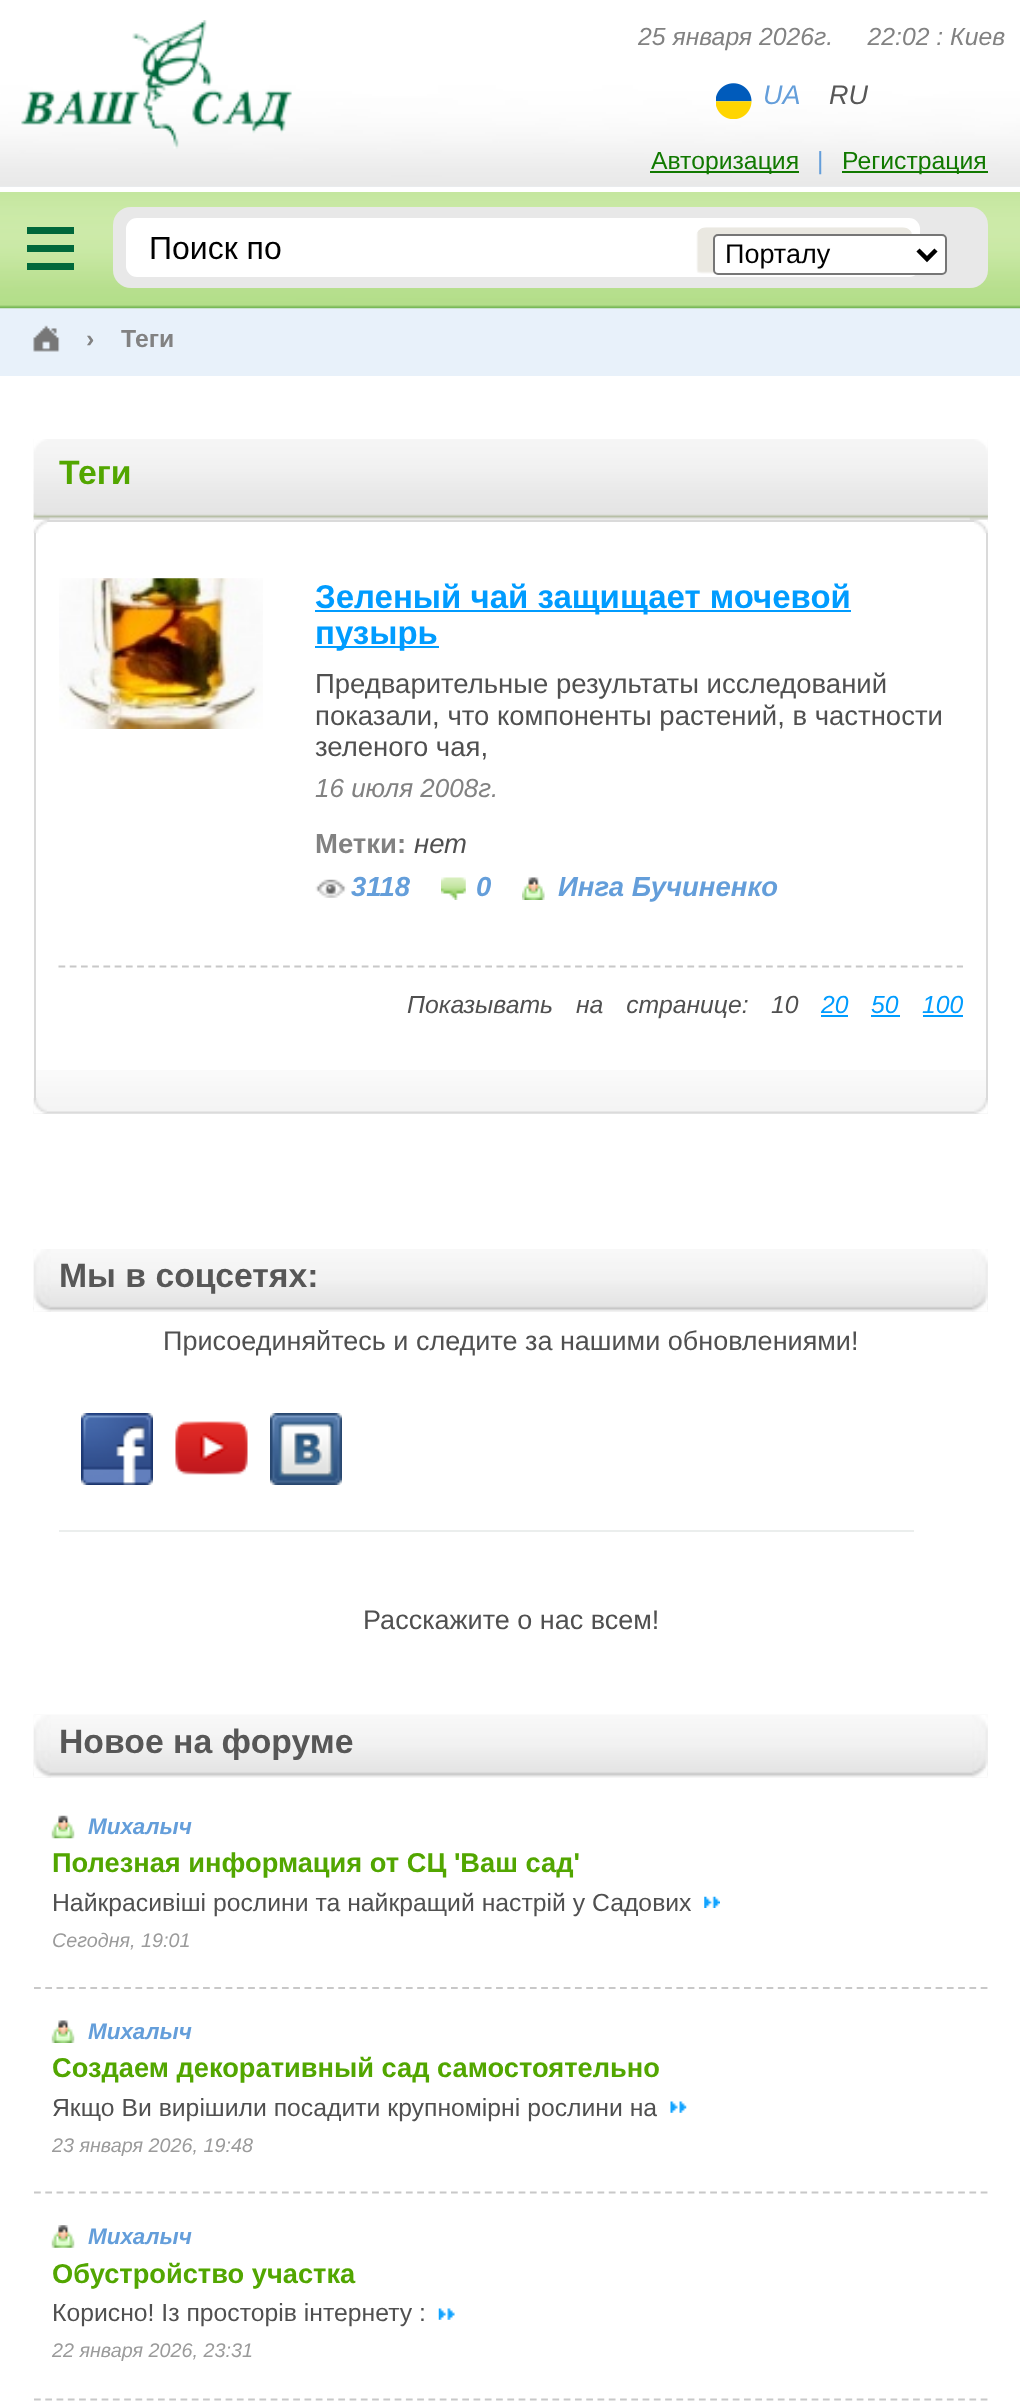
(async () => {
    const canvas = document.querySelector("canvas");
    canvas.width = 1020;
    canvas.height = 2406;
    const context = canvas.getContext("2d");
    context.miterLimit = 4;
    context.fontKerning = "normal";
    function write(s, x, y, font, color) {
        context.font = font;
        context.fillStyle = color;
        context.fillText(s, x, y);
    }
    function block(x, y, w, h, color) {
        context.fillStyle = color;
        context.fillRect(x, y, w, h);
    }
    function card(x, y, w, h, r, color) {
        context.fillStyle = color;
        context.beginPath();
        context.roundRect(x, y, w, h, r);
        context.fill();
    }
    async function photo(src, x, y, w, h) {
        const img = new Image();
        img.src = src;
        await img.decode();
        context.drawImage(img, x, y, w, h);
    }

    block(0, 0, 1020, 2406, "rgb(232, 241, 250)");
    await photo("media/1.png", 0, 0, 1020, 187);
    block(0, 187, 1020, 5, "rgb(255, 255, 255)");
    await photo("media/2.png", 21, 20, 271, 129);
    write("25 января 2026г.     22:02 : Киев", 638, 45, "italic 24.75px Liberation Sans", "rgb(130, 130, 130)");
    await photo("media/3.png", 716, 83, 36, 36);
    write("UA", 763, 104, "italic 27px Liberation Sans", "rgb(100, 158, 218)");
    write("RU", 829, 104, "italic 27px Liberation Sans", "rgb(87, 87, 87)");
    block(650, 171, 149, 2, "rgb(17, 121, 0)");
    write("Авторизация", 651, 169, "24.75px Liberation Sans", "rgb(17, 121, 0)");
    write("|", 817, 169, "24.75px Liberation Sans", "rgb(100, 158, 218)");
    block(842, 171, 146, 2, "rgb(17, 121, 0)");
    write("Регистрация", 842, 169, "24.75px Liberation Sans", "rgb(17, 121, 0)");
    await photo("media/5.png", 0, 192, 1020, 117);
    card(113, 207, 875, 81, 18, "rgb(232, 232, 232)");
    card(126, 218, 794, 59, 11, "rgb(255, 255, 255)");
    write("Поиск по", 149, 259, "32px Liberation Sans", "rgb(0, 0, 0)");
    await photo("media/4.png", 696, 227, 217, 47);
    context.fillStyle = "rgb(255, 255, 255)";
    context.beginPath();
    context.roundRect(714, 235, 232, 39, 4);
    context.fill();
    context.strokeStyle = "rgb(118, 118, 118)";
    context.lineWidth = 2;
    context.stroke();
    context.beginPath();
    context.moveTo(918, 250);
    context.lineTo(927, 259);
    context.lineTo(936, 250);
    context.strokeStyle = "rgb(0, 0, 0)";
    context.lineWidth = 4.5;
    context.stroke();
    write("Порталу", 725, 263, "27px Liberation Sans", "rgb(0, 0, 0)");
    block(27, 245, 47, 7, "rgb(0, 104, 59)");
    block(27, 227, 47, 7, "rgb(0, 104, 59)");
    block(27, 263, 47, 7, "rgb(0, 104, 59)");
    await photo("media/6.png", 33, 325, 27, 27);
    write("›", 86, 347, "bold 24.75px Liberation Sans", "rgb(130, 130, 130)");
    write("Теги", 121, 347, "bold 24.75px Liberation Sans", "rgb(130, 130, 130)");
    block(0, 376, 1020, 2030, "rgb(255, 255, 255)");
    await photo("media/7.png", 33, 439, 955, 81);
    await photo("media/8.png", 33, 439, 17, 81);
    await photo("media/9.png", 969, 439, 19, 81);
    write("Теги", 59, 484, "bold 33.75px Liberation Sans", "rgb(82, 166, 0)");
    await photo("media/10.png", 33, 1070, 955, 44);
    await photo("media/11.png", 33, 520, 955, 2);
    await photo("media/12.png", 33, 519, 15, 15);
    await photo("media/13.png", 974, 519, 14, 15);
    await photo("media/14.png", 33, 1098, 14, 16);
    await photo("media/15.png", 974, 1098, 14, 16);
    block(986, 533, 2, 567, "rgb(218, 218, 218)");
    block(34, 533, 2, 567, "rgb(218, 218, 218)");
    await photo("media/16.png", 59, 578, 204, 151);
    block(315, 610, 536, 2, "rgb(0, 156, 255)");
    write("Зеленый чай защищает мочевой", 315, 608, "bold 33px Liberation Sans", "rgb(0, 156, 255)");
    block(315, 646, 124, 2, "rgb(0, 156, 255)");
    write("пузырь", 315, 644, "bold 33px Liberation Sans", "rgb(0, 156, 255)");
    write("Предварительные результаты исследований", 315, 693, "27.5px Liberation Sans", "rgb(80, 80, 80)");
    write("показали, что компоненты растений, в частности", 315, 725, "27.5px Liberation Sans", "rgb(80, 80, 80)");
    write("зеленого чая,", 315, 756, "27.5px Liberation Sans", "rgb(80, 80, 80)");
    write("16 июля 2008г.", 315, 797, "italic 26px Liberation Sans", "rgb(130, 130, 130)");
    write("Метки:", 315, 853, "bold 27.5px Liberation Sans", "rgb(130, 130, 130)");
    write("нет", 414, 853, "italic 27.5px Liberation Sans", "rgb(80, 80, 80)");
    await photo("media/17.png", 315, 879, 32, 19);
    write("3118", 351, 896, "italic bold 27.5px Liberation Sans", "rgb(100, 158, 218)");
    await photo("media/18.png", 441, 877, 25, 23);
    write("0", 476, 896, "italic bold 27.5px Liberation Sans", "rgb(100, 158, 218)");
    await photo("media/19.png", 522, 877, 23, 23);
    write("Инга Бучиненко", 558, 896, "italic bold 27.5px Liberation Sans", "rgb(100, 158, 218)");
    context.beginPath();
    context.moveTo(58.5, 966.5);
    context.lineTo(963, 966.5);
    context.strokeStyle = "rgb(200, 200, 200)";
    context.lineWidth = 2.2;
    context.setLineDash([6.75, 4.48]);
    context.stroke();
    context.wordSpacing = "16px";
    write("Показывать на странице:", 407, 1013, "italic 24.75px Liberation Sans", "rgb(80, 80, 80)");
    context.wordSpacing = "0px";
    write("10", 771, 1013, "italic 24.75px Liberation Sans", "rgb(80, 80, 80)");
    write("20", 821, 1013, "italic 24.75px Liberation Sans", "rgb(0, 156, 255)");
    block(821, 1015, 27, 2, "rgb(0, 156, 255)");
    write("50", 871, 1013, "italic 24.75px Liberation Sans", "rgb(0, 156, 255)");
    block(871, 1015, 29, 2, "rgb(0, 156, 255)");
    write("100", 922, 1013, "italic 24.75px Liberation Sans", "rgb(0, 156, 255)");
    block(923, 1015, 40, 2, "rgb(0, 156, 255)");
    await photo("media/20.png", 33, 1249, 955, 63);
    await photo("media/21.png", 33, 1249, 18, 63);
    await photo("media/22.png", 972, 1249, 16, 63);
    write("Мы в соцсетях:", 59, 1287, "bold 33.75px Liberation Sans", "rgb(87, 87, 87)");
    write("Присоединяйтесь и следите за нашими обновлениями!", 163, 1350, "27px Liberation Sans", "rgb(80, 80, 80)");
    block(59, 1530, 855, 2, "rgb(235, 238, 237)");
    await photo("media/23.png", 81, 1413, 72, 72);
    await photo("media/24.png", 175, 1421, 73, 54);
    await photo("media/25.png", 270, 1413, 72, 72);
    write("Расскажите о нас всем!", 363, 1629, "27px Liberation Sans", "rgb(80, 80, 80)");
    await photo("media/26.png", 33, 1714, 955, 64);
    await photo("media/27.png", 33, 1715, 18, 63);
    await photo("media/28.png", 972, 1715, 16, 63);
    write("Новое на форуме", 59, 1753, "bold 33.75px Liberation Sans", "rgb(87, 87, 87)");
    context.beginPath();
    context.moveTo(34, 1988);
    context.lineTo(988, 1988);
    context.setLineDash([6.75, 4.52]);
    context.stroke();
    await photo("media/29.png", 51, 1815, 24, 24);
    write("Михалыч", 88, 1834, "italic bold 22.5px Liberation Sans", "rgb(100, 158, 218)");
    write("Полезная информация от СЦ 'Ваш сад'", 52, 1872, "bold 27.25px Liberation Sans", "rgb(82, 166, 0)");
    write("Найкрасивіші рослини та найкращий настрій у Садових", 52, 1911, "24.75px Liberation Sans", "rgb(80, 80, 80)");
    await photo("media/30.png", 704, 1896, 16, 12);
    write("Сегодня, 19:01", 52, 1947, "italic 19.75px Liberation Sans", "rgb(155, 155, 155)");
    context.beginPath();
    context.moveTo(34, 2192.5);
    context.lineTo(988, 2192.5);
    context.stroke();
    await photo("media/31.png", 51, 2020, 24, 23);
    write("Михалыч", 88, 2039, "italic bold 22.5px Liberation Sans", "rgb(100, 158, 218)");
    write("Создаем декоративный сад самостоятельно", 52, 2077, "bold 27.25px Liberation Sans", "rgb(82, 166, 0)");
    write("Якщо Ви вирішили посадити крупномірні рослини на", 52, 2116, "24.75px Liberation Sans", "rgb(80, 80, 80)");
    await photo("media/32.png", 670, 2101, 17, 12);
    write("23 января 2026, 19:48", 52, 2152, "italic 19.75px Liberation Sans", "rgb(155, 155, 155)");
    context.beginPath();
    context.moveTo(34, 2399.5);
    context.lineTo(988, 2399.5);
    context.stroke();
    await photo("media/33.png", 51, 2225, 24, 23);
    write("Михалыч", 88, 2244, "italic bold 22.5px Liberation Sans", "rgb(100, 158, 218)");
    write("Обустройство участка", 52, 2283, "bold 27.25px Liberation Sans", "rgb(82, 166, 0)");
    write("Корисно! Із просторів інтернету :", 52, 2321, "24.75px Liberation Sans", "rgb(80, 80, 80)");
    await photo("media/34.png", 438, 2308, 17, 12);
    write("22 января 2026, 23:31", 52, 2357, "italic 19.75px Liberation Sans", "rgb(155, 155, 155)");
})();
